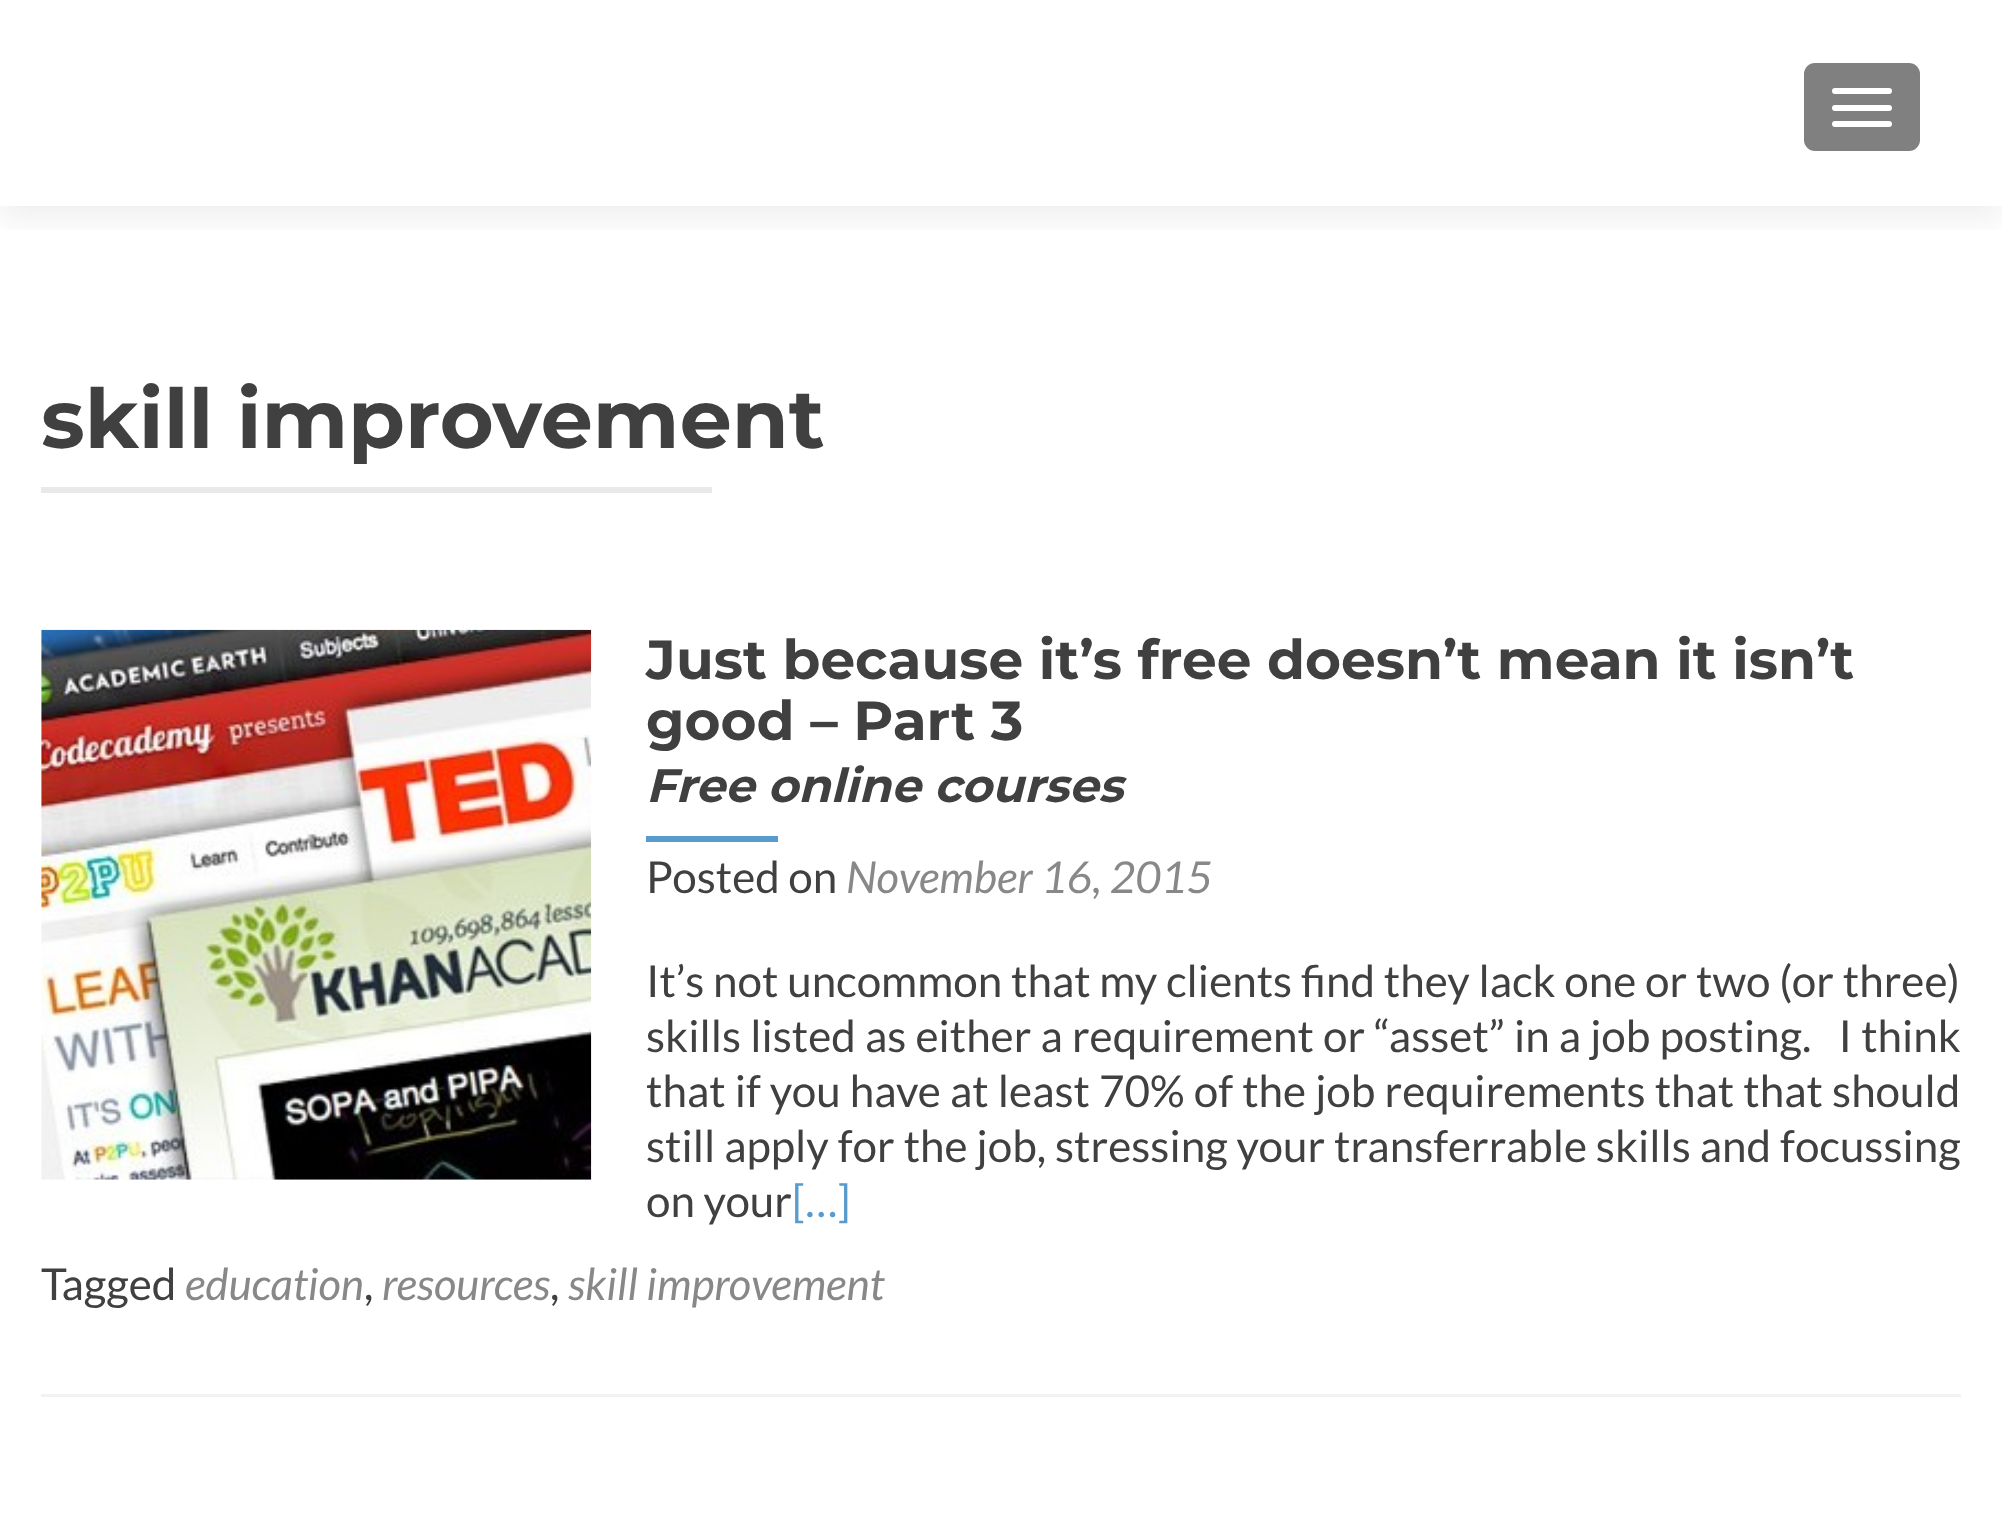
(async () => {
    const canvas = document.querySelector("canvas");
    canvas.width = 2002;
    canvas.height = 1527;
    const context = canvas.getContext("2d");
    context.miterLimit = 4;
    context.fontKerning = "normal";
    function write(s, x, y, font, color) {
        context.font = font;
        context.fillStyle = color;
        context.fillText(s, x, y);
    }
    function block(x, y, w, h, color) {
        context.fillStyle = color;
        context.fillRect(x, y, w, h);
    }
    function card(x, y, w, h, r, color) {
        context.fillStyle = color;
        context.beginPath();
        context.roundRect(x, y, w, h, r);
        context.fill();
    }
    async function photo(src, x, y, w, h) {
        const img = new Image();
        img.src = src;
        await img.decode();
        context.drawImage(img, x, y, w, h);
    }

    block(0, 0, 2002, 1527, "rgb(255, 255, 255)");
    context.save();
    context.beginPath();
    context.rect(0, 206, 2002, 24);
    context.clip();
    context.fillStyle = "rgba(50, 50, 50, 0.08)";
    context.filter = "blur(15px)";
    context.beginPath();
    context.rect(0, 14, 2002, 206);
    context.fill();
    context.filter = "none";
    context.restore();
    card(1804, 63, 116, 88, 11, "rgb(128, 128, 128)");
    card(1832, 88, 60, 6, 3, "rgb(255, 255, 255)");
    card(1832, 105, 60, 6, 3, "rgb(255, 255, 255)");
    card(1832, 121, 60, 6, 3, "rgb(255, 255, 255)");
    write("skill improvement", 41, 448, "100 82.5px Montserrat", "rgb(64, 64, 64)");
    block(41, 487, 671, 6, "rgb(233, 233, 233)");
    block(41, 1394, 1920, 3, "rgb(242, 242, 242)");
    await photo("media/1.png", 41, 629, 551, 551);
    write("Just because it’s free doesn’t mean it isn’t", 646, 679, "100 55px Montserrat", "rgb(64, 64, 64)");
    write("good – Part 3", 646, 740, "100 55px Montserrat", "rgb(64, 64, 64)");
    write("Free online courses", 646, 802, "italic 100 46.75px Montserrat", "rgb(64, 64, 64)");
    block(646, 836, 132, 6, "rgb(89, 155, 204)");
    write("Posted on", 646, 893, "44px Lato", "rgb(64, 64, 64)");
    write("November 16, 2015", 846, 893, "italic 44px Lato", "rgb(136, 136, 136)");
    context.wordSpacing = "0.25px";
    write("It’s not uncommon that my clients find they lack one or two (or three)", 646, 997, "44px Lato", "rgb(64, 64, 64)");
    context.wordSpacing = "0.6px";
    write("skills listed as either a requirement or “asset” in a job posting.   I think", 646, 1052, "44px Lato", "rgb(64, 64, 64)");
    write("that if you have at least 70% of the job requirements that that should", 646, 1107, "44px Lato", "rgb(64, 64, 64)");
    context.wordSpacing = "0.4px";
    write("still apply for the job, stressing your transferrable skills and focussing", 646, 1162, "44px Lato", "rgb(64, 64, 64)");
    context.wordSpacing = "0px";
    write("on your", 646, 1217, "44px Lato", "rgb(64, 64, 64)");
    write("[…]", 792, 1217, "44px Lato", "rgb(89, 155, 204)");
    write("Tagged", 41, 1300, "44px Lato", "rgb(64, 64, 64)");
    write("education", 185, 1300, "italic 44px Lato", "rgb(136, 136, 136)");
    write(",", 364, 1300, "44px Lato", "rgb(64, 64, 64)");
    write("resources", 382, 1300, "italic 44px Lato", "rgb(136, 136, 136)");
    write(",", 550, 1300, "44px Lato", "rgb(64, 64, 64)");
    write("skill improvement", 568, 1300, "italic 44px Lato", "rgb(136, 136, 136)");
})();
